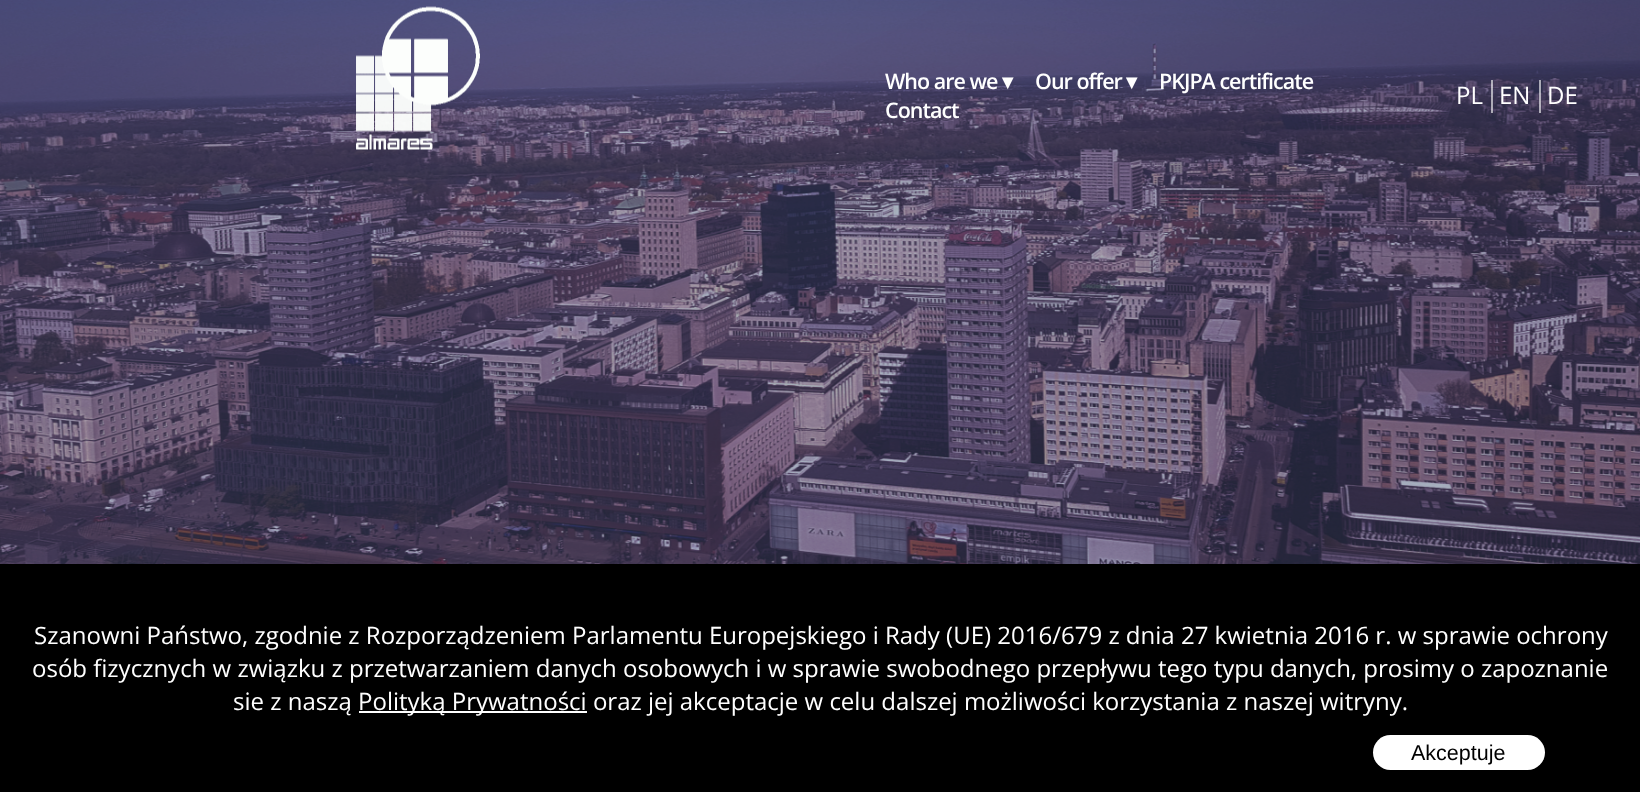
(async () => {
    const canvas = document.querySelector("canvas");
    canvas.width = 1640;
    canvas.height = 792;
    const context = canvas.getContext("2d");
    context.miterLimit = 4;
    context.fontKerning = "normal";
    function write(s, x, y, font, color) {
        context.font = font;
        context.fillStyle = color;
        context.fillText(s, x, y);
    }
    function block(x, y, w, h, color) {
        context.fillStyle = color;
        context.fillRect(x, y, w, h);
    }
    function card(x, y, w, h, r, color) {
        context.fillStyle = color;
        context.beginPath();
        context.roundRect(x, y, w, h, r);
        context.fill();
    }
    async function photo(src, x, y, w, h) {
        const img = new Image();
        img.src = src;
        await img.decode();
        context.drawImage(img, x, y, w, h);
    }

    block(0, 0, 1640, 792, "rgb(255, 255, 255)");
    await photo("media/1.png", 0, 0, 1640, 564);
    await photo("media/2.png", 356, 6, 124, 144);
    context.letterSpacing = "-1px";
    write("Who are we", 885, 89, "600 21.5px Open Sans", "rgb(255, 255, 255)");
    write("▾", 1002, 89, "bold 21.5px DejaVu Sans", "rgb(255, 255, 255)");
    write("Our offer", 1035, 89, "600 21.5px Open Sans", "rgb(255, 255, 255)");
    write("▾", 1126, 89, "bold 21.5px DejaVu Sans", "rgb(255, 255, 255)");
    write("PKJPA certificate", 1159, 89, "600 21.5px Open Sans", "rgb(255, 255, 255)");
    write("Contact", 885, 118, "600 21.5px Open Sans", "rgb(255, 255, 255)");
    block(1491, 80, 2, 33, "rgba(255, 255, 255, 0.6)");
    context.letterSpacing = "0px";
    write("PL", 1456, 104, "24px Open Sans", "rgb(255, 255, 255)");
    block(1539, 80, 2, 33, "rgba(255, 255, 255, 0.6)");
    write("EN", 1499, 104, "24px Open Sans", "rgb(255, 255, 255)");
    write("DE", 1547, 104, "24px Open Sans", "rgb(255, 255, 255)");
    block(0, 564, 1640, 228, "rgb(0, 0, 0)");
    write("Szanowni Państwo, zgodnie z Rozporządzeniem Parlamentu Europejskiego i Rady (UE) 2016/679 z dnia 27 kwietnia 2016 r. w sprawie ochrony", 34, 644, "24px Open Sans", "rgb(255, 255, 255)");
    write("osób fizycznych w związku z przetwarzaniem danych osobowych i w sprawie swobodnego przepływu tego typu danych, prosimy o zapoznanie", 32, 677, "24px Open Sans", "rgb(255, 255, 255)");
    write("sie z naszą", 233, 710, "24px Open Sans", "rgb(255, 255, 255)");
    block(359, 711, 228, 2, "rgb(255, 255, 255)");
    write("Polityką Prywatności oraz jej akceptacje w celu dalszej możliwości korzystania z naszej witryny.", 358, 710, "24px Open Sans", "rgb(255, 255, 255)");
    card(1373, 735, 172, 35, 17.5, "rgb(255, 255, 255)");
    write("Akceptuje", 1411, 760, "21.5px Liberation Sans", "rgb(0, 0, 0)");
})();
